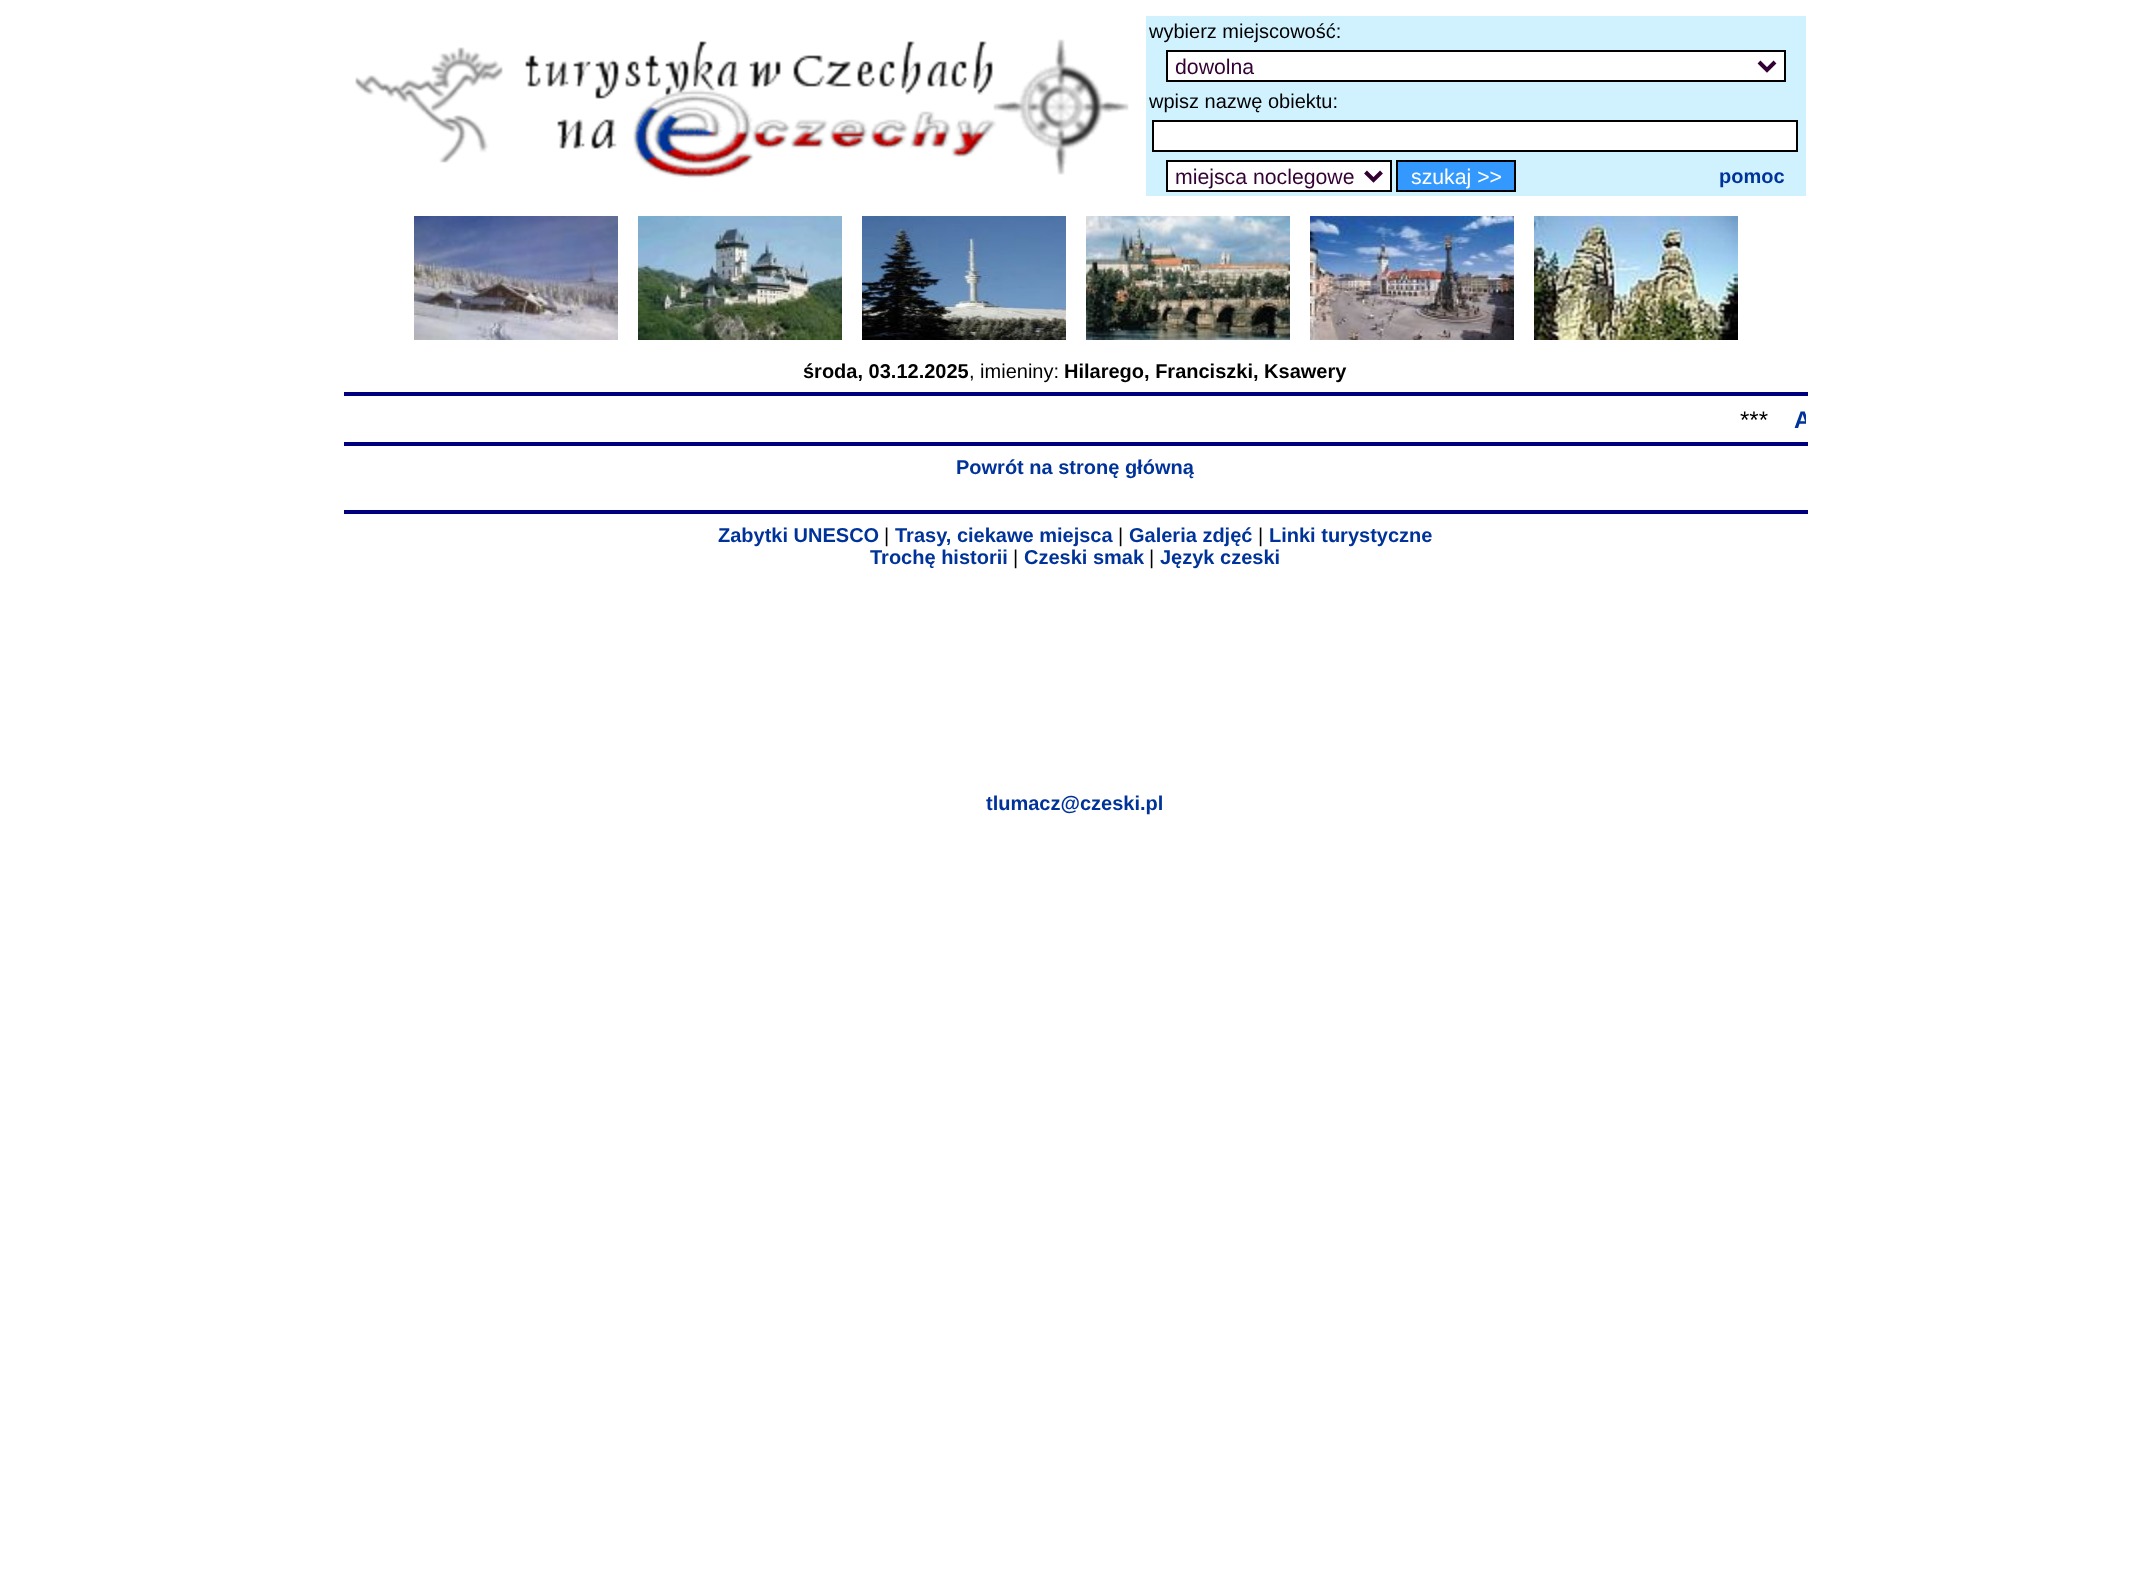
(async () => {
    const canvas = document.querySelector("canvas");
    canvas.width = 2150;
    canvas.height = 1578;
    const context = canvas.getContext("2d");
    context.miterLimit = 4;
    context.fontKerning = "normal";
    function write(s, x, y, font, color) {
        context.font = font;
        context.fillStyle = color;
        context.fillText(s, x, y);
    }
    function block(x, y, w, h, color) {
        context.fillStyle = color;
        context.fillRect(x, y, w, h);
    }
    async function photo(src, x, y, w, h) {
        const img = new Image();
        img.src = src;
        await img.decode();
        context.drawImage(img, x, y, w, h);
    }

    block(0, 0, 2150, 1578, "rgb(255, 255, 255)");
    await photo("media/1.png", 355, 39, 774, 139);
    block(1146, 16, 660, 180, "rgb(208, 242, 255)");
    write("wybierz miejscowość:", 1149, 38, "20px Liberation Sans", "rgb(0, 0, 0)");
    context.fillStyle = "rgb(255, 255, 255)";
    context.beginPath();
    context.rect(1167, 51, 618, 30);
    context.fill();
    context.strokeStyle = "rgb(0, 0, 0)";
    context.lineWidth = 2;
    context.stroke();
    context.beginPath();
    context.moveTo(1759, 62);
    context.lineTo(1767, 70);
    context.lineTo(1775, 62);
    context.strokeStyle = "rgb(51, 0, 51)";
    context.lineWidth = 4;
    context.stroke();
    write("dowolna", 1175, 74, "21.25px Liberation Sans", "rgb(51, 0, 51)");
    write("wpisz nazwę obiektu:", 1149, 108, "20px Liberation Sans", "rgb(0, 0, 0)");
    context.fillStyle = "rgb(255, 255, 255)";
    context.beginPath();
    context.rect(1153, 121, 644, 30);
    context.fill();
    context.strokeStyle = "rgb(0, 0, 0)";
    context.lineWidth = 2;
    context.stroke();
    context.beginPath();
    context.rect(1167, 161, 224, 30);
    context.fill();
    context.stroke();
    context.beginPath();
    context.moveTo(1365.5, 172);
    context.lineTo(1373.5, 180);
    context.lineTo(1381.5, 172);
    context.strokeStyle = "rgb(51, 0, 51)";
    context.lineWidth = 4;
    context.stroke();
    write("miejsca noclegowe", 1175, 184, "21.25px Liberation Sans", "rgb(51, 0, 51)");
    context.fillStyle = "rgb(51, 153, 255)";
    context.beginPath();
    context.rect(1397, 161, 118, 30);
    context.fill();
    context.strokeStyle = "rgb(0, 0, 0)";
    context.lineWidth = 2;
    context.stroke();
    write("szukaj >>", 1411, 184, "21.25px Liberation Sans", "rgb(255, 255, 255)");
    write("pomoc", 1719, 183, "bold 20px Liberation Sans", "rgb(0, 51, 153)");
    await photo("media/2.png", 414, 216, 204, 124);
    await photo("media/3.png", 638, 216, 204, 124);
    await photo("media/4.png", 862, 216, 204, 124);
    await photo("media/5.png", 1086, 216, 204, 124);
    await photo("media/6.png", 1310, 216, 204, 124);
    await photo("media/7.png", 1534, 216, 204, 124);
    write("środa, 03.12.2025", 803, 378, "bold 20px Liberation Sans", "rgb(0, 0, 0)");
    write(", imieniny:", 969, 378, "20px Liberation Sans", "rgb(0, 0, 0)");
    write("Hilarego, Franciszki, Ksawery", 1064, 378, "bold 20px Liberation Sans", "rgb(0, 0, 0)");
    block(344, 392, 1464, 4, "rgb(0, 0, 127)");
    write("***", 1740, 428, "24px Liberation Sans", "rgb(0, 0, 0)");
    context.save();
    context.beginPath();
    context.rect(346, 406, 1460, 28);
    context.clip();
    write("A", 1794, 428, "bold 24px Liberation Sans", "rgb(0, 51, 153)");
    context.restore();
    block(344, 442, 1464, 4, "rgb(0, 0, 127)");
    write("Powrót na stronę główną", 956, 474, "bold 20px Liberation Sans", "rgb(0, 51, 153)");
    block(344, 510, 1464, 4, "rgb(0, 0, 127)");
    write("Zabytki UNESCO", 718, 542, "bold 20px Liberation Sans", "rgb(0, 51, 153)");
    write("|", 884, 542, "20px Liberation Sans", "rgb(0, 0, 0)");
    write("Trasy, ciekawe miejsca", 895, 542, "bold 20px Liberation Sans", "rgb(0, 51, 153)");
    write("|", 1118, 542, "20px Liberation Sans", "rgb(0, 0, 0)");
    write("Galeria zdjęć", 1129, 542, "bold 20px Liberation Sans", "rgb(0, 51, 153)");
    write("|", 1258, 542, "20px Liberation Sans", "rgb(0, 0, 0)");
    write("Linki turystyczne", 1269, 542, "bold 20px Liberation Sans", "rgb(0, 51, 153)");
    write("Trochę historii", 870, 564, "bold 20px Liberation Sans", "rgb(0, 51, 153)");
    write("|", 1013, 564, "20px Liberation Sans", "rgb(0, 0, 0)");
    write("Czeski smak", 1024, 564, "bold 20px Liberation Sans", "rgb(0, 51, 153)");
    write("|", 1149, 564, "20px Liberation Sans", "rgb(0, 0, 0)");
    write("Język czeski", 1160, 564, "bold 20px Liberation Sans", "rgb(0, 51, 153)");
    write("tlumacz@czeski.pl", 986, 810, "bold 20px Liberation Sans", "rgb(0, 51, 153)");
})();
